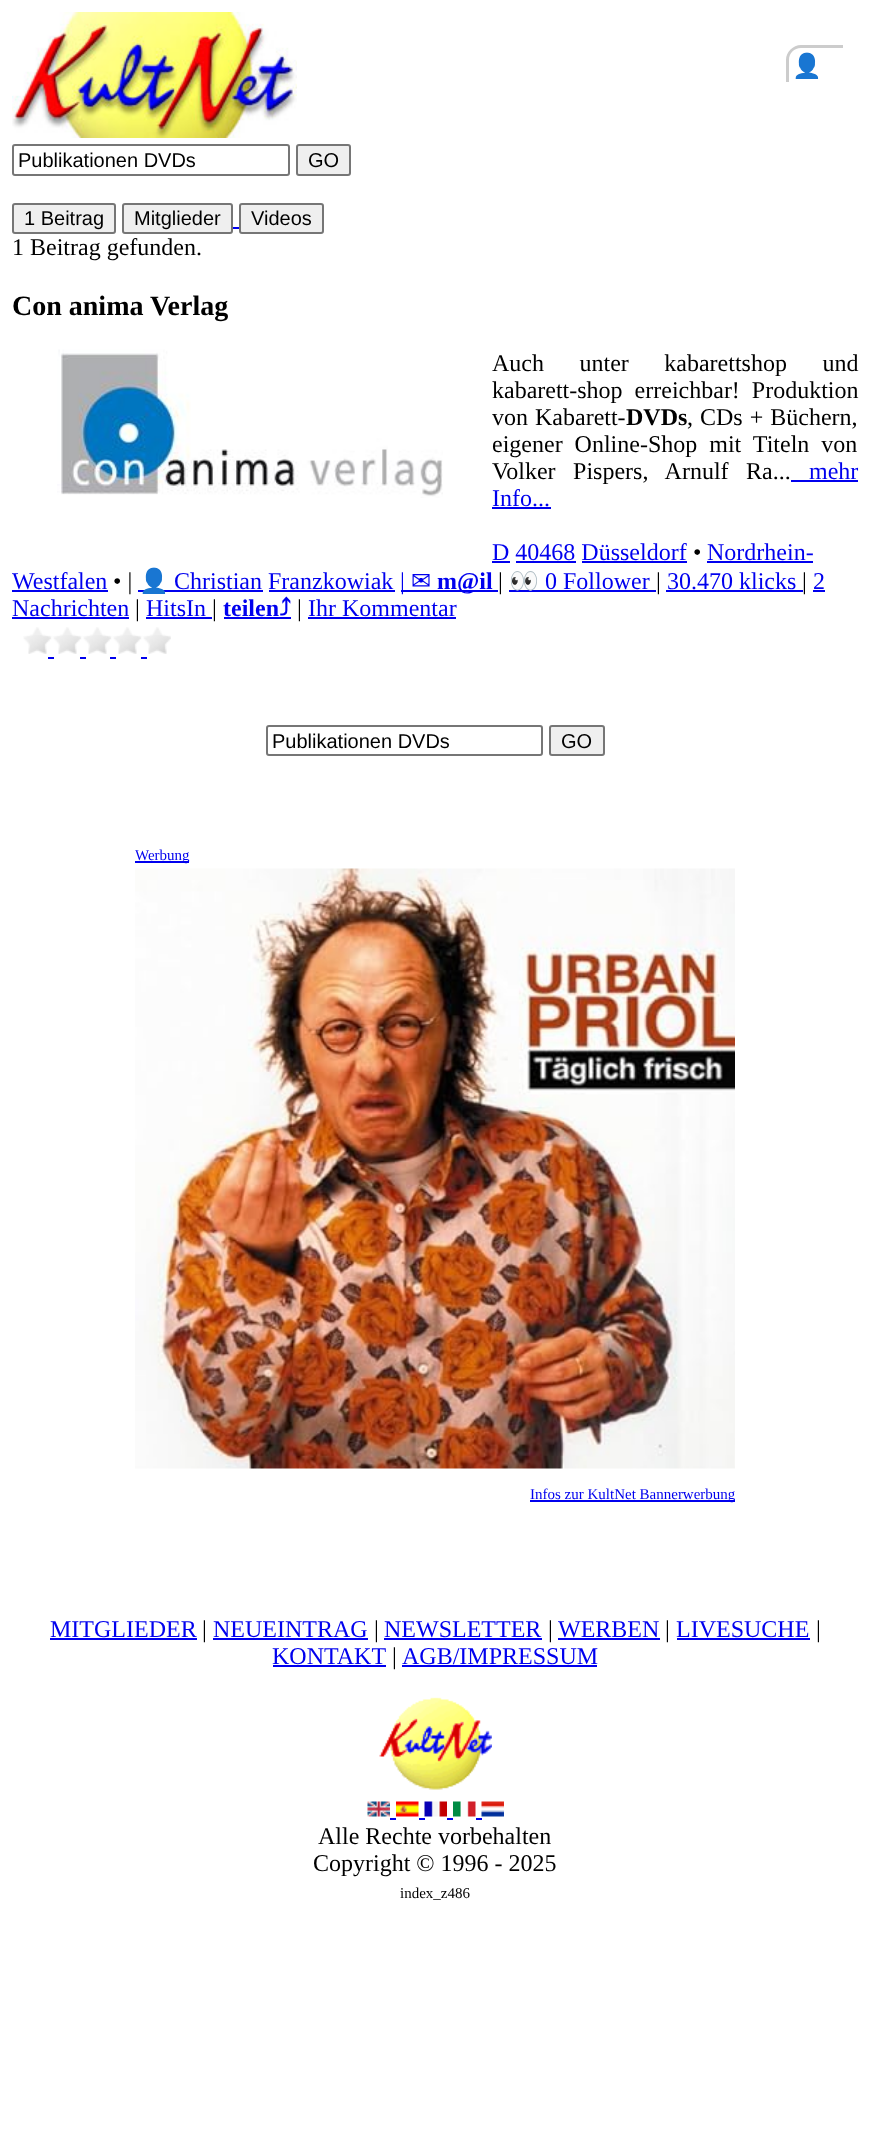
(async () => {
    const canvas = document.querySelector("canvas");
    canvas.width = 870;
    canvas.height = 2149;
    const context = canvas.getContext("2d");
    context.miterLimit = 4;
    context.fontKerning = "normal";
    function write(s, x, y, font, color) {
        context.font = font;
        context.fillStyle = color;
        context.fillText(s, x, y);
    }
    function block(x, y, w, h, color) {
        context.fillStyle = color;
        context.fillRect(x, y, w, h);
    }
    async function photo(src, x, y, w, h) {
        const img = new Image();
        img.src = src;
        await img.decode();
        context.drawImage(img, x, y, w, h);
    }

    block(0, 0, 870, 2149, "rgb(255, 255, 255)");
    await photo("media/1.png", 12, 12, 285, 126);
    context.fillStyle = "rgb(204, 204, 204)";
    context.beginPath();
    context.moveTo(801, 45);
    context.lineTo(843, 45);
    context.lineTo(843, 82);
    context.lineTo(786, 82);
    context.lineTo(786, 60);
    context.bezierCurveTo(786, 52, 793, 45, 801, 45);
    context.closePath();
    context.moveTo(801, 48);
    context.lineTo(843, 48);
    context.lineTo(843, 82);
    context.lineTo(789, 82);
    context.lineTo(789, 60);
    context.bezierCurveTo(789, 53, 794, 48, 801, 48);
    context.closePath();
    context.fill("evenodd");
    write("👤", 792, 74, "24px Noto Color Emoji", "rgb(0, 0, 238)");
    context.beginPath();
    context.roundRect(13, 145, 276, 30, 2);
    context.strokeStyle = "rgb(118, 118, 118)";
    context.lineWidth = 2;
    context.stroke();
    write("Publikationen DVDs", 18, 167, "20px Liberation Sans", "rgb(0, 0, 0)");
    context.fillStyle = "rgb(239, 239, 239)";
    context.beginPath();
    context.roundRect(297, 145, 53, 30, 2);
    context.fill();
    context.stroke();
    write("GO", 308, 167, "20px Liberation Sans", "rgb(0, 0, 0)");
    context.fillStyle = "rgb(239, 239, 239)";
    context.beginPath();
    context.roundRect(13, 204, 102, 29, 2);
    context.fill();
    context.stroke();
    write("1 Beitrag", 24, 225, "20px Liberation Sans", "rgb(0, 0, 0)");
    context.fillStyle = "rgb(239, 239, 239)";
    context.beginPath();
    context.roundRect(123, 204, 109, 29, 2);
    context.fill();
    context.stroke();
    write("Mitglieder", 134, 225, "20px Liberation Sans", "rgb(0, 0, 0)");
    block(233, 227, 6, 2, "rgb(0, 0, 238)");
    context.fillStyle = "rgb(239, 239, 239)";
    context.beginPath();
    context.roundRect(240, 204, 83, 29, 2);
    context.fill();
    context.stroke();
    write("Videos", 251, 225, "20px Liberation Sans", "rgb(0, 0, 0)");
    write("1 Beitrag gefunden.", 12, 255, "24px Liberation Serif", "rgb(0, 0, 0)");
    write("Con anima Verlag", 12, 315, "bold 28px Liberation Serif", "rgb(0, 0, 0)");
    await photo("media/2.png", 57, 349, 386, 149);
    context.wordSpacing = "29.5px";
    write("Auch unter kabarettshop und", 492, 371, "24px Liberation Serif", "rgb(0, 0, 0)");
    context.wordSpacing = "6px";
    write("kabarett-shop erreichbar! Produktion", 492, 398, "24px Liberation Serif", "rgb(0, 0, 0)");
    context.wordSpacing = "1px";
    write("von Kabarett-", 492, 425, "24px Liberation Serif", "rgb(0, 0, 0)");
    context.wordSpacing = "0px";
    write("DVDs", 626, 425, "bold 24px Liberation Serif", "rgb(0, 0, 0)");
    context.wordSpacing = "1px";
    write(", CDs + Büchern,", 687, 425, "24px Liberation Serif", "rgb(0, 0, 0)");
    context.wordSpacing = "6px";
    write("eigener Online-Shop mit Titeln von", 492, 452, "24px Liberation Serif", "rgb(0, 0, 0)");
    context.wordSpacing = "11.5px";
    write("Volker Pispers, Arnulf Ra...", 492, 479, "24px Liberation Serif", "rgb(0, 0, 0)");
    block(791, 480, 67, 2, "rgb(0, 0, 238)");
    context.wordSpacing = "0px";
    write("mehr", 809, 479, "24px Liberation Serif", "rgb(0, 0, 238)");
    write("Info...", 492, 506, "24px Liberation Serif", "rgb(0, 0, 238)");
    block(492, 507, 59, 2, "rgb(0, 0, 238)");
    write("D 40468 Düsseldorf", 492, 560, "24px Liberation Serif", "rgb(0, 0, 238)");
    block(492, 561, 18, 2, "rgb(0, 0, 238)");
    write("•", 693, 560, "24px Liberation Serif", "rgb(0, 0, 0)");
    write("Nordrhein-", 707, 560, "24px Liberation Serif", "rgb(0, 0, 238)");
    block(707, 561, 106, 2, "rgb(0, 0, 238)");
    block(516, 561, 60, 2, "rgb(0, 0, 238)");
    block(582, 561, 105, 2, "rgb(0, 0, 238)");
    write("• |", 113, 589, "24px Liberation Serif", "rgb(0, 0, 0)");
    block(138, 590, 125, 2, "rgb(0, 0, 238)");
    write("👤", 139, 589, "24px Noto Color Emoji", "rgb(0, 0, 238)");
    write("Christian Franzkowiak", 174, 589, "24px Liberation Serif", "rgb(0, 0, 238)");
    block(401, 590, 97, 2, "rgb(0, 0, 238)");
    write("|", 400, 589, "24px Liberation Serif", "rgb(0, 0, 238)");
    write("✉", 411, 589, "24px DejaVu Sans", "rgb(0, 0, 238)");
    write("m@il", 437, 589, "bold 24px Liberation Serif", "rgb(0, 0, 238)");
    write("|", 498, 589, "24px Liberation Serif", "rgb(0, 0, 0)");
    block(509, 590, 147, 2, "rgb(0, 0, 238)");
    write("👀", 509, 589, "24px Noto Color Emoji", "rgb(0, 0, 238)");
    write("0 Follower", 545, 589, "24px Liberation Serif", "rgb(0, 0, 238)");
    write("|", 656, 589, "24px Liberation Serif", "rgb(0, 0, 0)");
    write("30.470 klicks", 667, 589, "24px Liberation Serif", "rgb(0, 0, 238)");
    block(666, 590, 137, 2, "rgb(0, 0, 238)");
    write("|", 802, 589, "24px Liberation Serif", "rgb(0, 0, 0)");
    write("2", 813, 589, "24px Liberation Serif", "rgb(0, 0, 238)");
    block(813, 590, 12, 2, "rgb(0, 0, 238)");
    block(269, 590, 126, 2, "rgb(0, 0, 238)");
    write("Nachrichten", 12, 616, "24px Liberation Serif", "rgb(0, 0, 238)");
    block(12, 617, 117, 2, "rgb(0, 0, 238)");
    write("|", 135, 616, "24px Liberation Serif", "rgb(0, 0, 0)");
    write("HitsIn", 146, 616, "24px Liberation Serif", "rgb(0, 0, 238)");
    block(146, 617, 66, 2, "rgb(0, 0, 238)");
    write("|", 212, 616, "24px Liberation Serif", "rgb(0, 0, 0)");
    write("teilen", 223, 616, "bold 24px Liberation Serif", "rgb(0, 0, 238)");
    block(224, 617, 67, 2, "rgb(0, 0, 238)");
    write("⤴", 279, 616, "bold 24px IPAGothic", "rgb(0, 0, 238)");
    write("|", 297, 616, "24px Liberation Serif", "rgb(0, 0, 0)");
    write("Ihr Kommentar", 308, 616, "24px Liberation Serif", "rgb(0, 0, 238)");
    block(308, 617, 148, 2, "rgb(0, 0, 238)");
    await photo("media/3.png", 23, 627, 148, 27);
    await photo("media/4.png", 28, 635, 143, 19);
    block(48, 657, 6, 2, "rgb(0, 0, 238)");
    block(80, 657, 6, 2, "rgb(0, 0, 238)");
    block(110, 657, 6, 2, "rgb(0, 0, 238)");
    block(141, 657, 6, 2, "rgb(0, 0, 238)");
    write("Westfalen", 12, 589, "24px Liberation Serif", "rgb(0, 0, 238)");
    block(12, 590, 96, 2, "rgb(0, 0, 238)");
    context.beginPath();
    context.roundRect(267, 726, 275, 29, 2);
    context.stroke();
    write("Publikationen DVDs", 272, 748, "20px Liberation Sans", "rgb(0, 0, 0)");
    context.fillStyle = "rgb(239, 239, 239)";
    context.beginPath();
    context.roundRect(550, 726, 54, 29, 2);
    context.fill();
    context.stroke();
    write("GO", 561, 748, "20px Liberation Sans", "rgb(0, 0, 0)");
    block(135, 861, 54, 2, "rgb(0, 0, 238)");
    write("Werbung", 135, 860, "15px Liberation Serif", "rgb(0, 0, 238)");
    await photo("media/5.png", 135, 868, 600, 601);
    block(530, 1500, 205, 2, "rgb(0, 0, 238)");
    write("Infos zur KultNet Bannerwerbung", 530, 1499, "15px Liberation Serif", "rgb(0, 0, 238)");
    write("MITGLIEDER", 50, 1637, "24px Liberation Serif", "rgb(0, 0, 238)");
    block(50, 1638, 147, 2, "rgb(0, 0, 238)");
    write("|", 202, 1637, "24px Liberation Serif", "rgb(0, 0, 0)");
    write("NEUEINTRAG", 213, 1637, "24px Liberation Serif", "rgb(0, 0, 238)");
    block(213, 1638, 155, 2, "rgb(0, 0, 238)");
    write("|", 374, 1637, "24px Liberation Serif", "rgb(0, 0, 0)");
    write("NEWSLETTER", 384, 1637, "24px Liberation Serif", "rgb(0, 0, 238)");
    block(384, 1638, 158, 2, "rgb(0, 0, 238)");
    write("|", 548, 1637, "24px Liberation Serif", "rgb(0, 0, 0)");
    write("WERBEN", 558, 1637, "24px Liberation Serif", "rgb(0, 0, 238)");
    block(558, 1638, 102, 2, "rgb(0, 0, 238)");
    write("|", 665, 1637, "24px Liberation Serif", "rgb(0, 0, 0)");
    write("LIVESUCHE", 676, 1637, "24px Liberation Serif", "rgb(0, 0, 238)");
    block(677, 1638, 133, 2, "rgb(0, 0, 238)");
    write("|", 816, 1637, "24px Liberation Serif", "rgb(0, 0, 0)");
    write("KONTAKT", 272, 1664, "24px Liberation Serif", "rgb(0, 0, 238)");
    block(273, 1665, 113, 2, "rgb(0, 0, 238)");
    write("|", 392, 1664, "24px Liberation Serif", "rgb(0, 0, 0)");
    write("AGB/IMPRESSUM", 402, 1664, "24px Liberation Serif", "rgb(0, 0, 238)");
    block(402, 1665, 195, 2, "rgb(0, 0, 238)");
    await photo("media/6.png", 379, 1697, 113, 93);
    await photo("media/7.png", 367, 1801, 23, 16);
    await photo("media/8.png", 396, 1801, 23, 16);
    await photo("media/9.png", 424, 1801, 23, 16);
    await photo("media/10.png", 453, 1801, 23, 16);
    await photo("media/11.png", 481, 1801, 23, 16);
    block(390, 1818, 6, 2, "rgb(0, 0, 238)");
    block(419, 1818, 6, 2, "rgb(0, 0, 238)");
    block(447, 1818, 6, 2, "rgb(0, 0, 238)");
    block(476, 1818, 6, 2, "rgb(0, 0, 238)");
    write("Alle Rechte vorbehalten", 318, 1844, "24px Liberation Serif", "rgb(0, 0, 0)");
    write("Copyright © 1996 - 2025", 313, 1871, "24px Liberation Serif", "rgb(0, 0, 0)");
    write("index_z486", 400, 1898, "15px Liberation Serif", "rgb(0, 0, 0)");
})();
